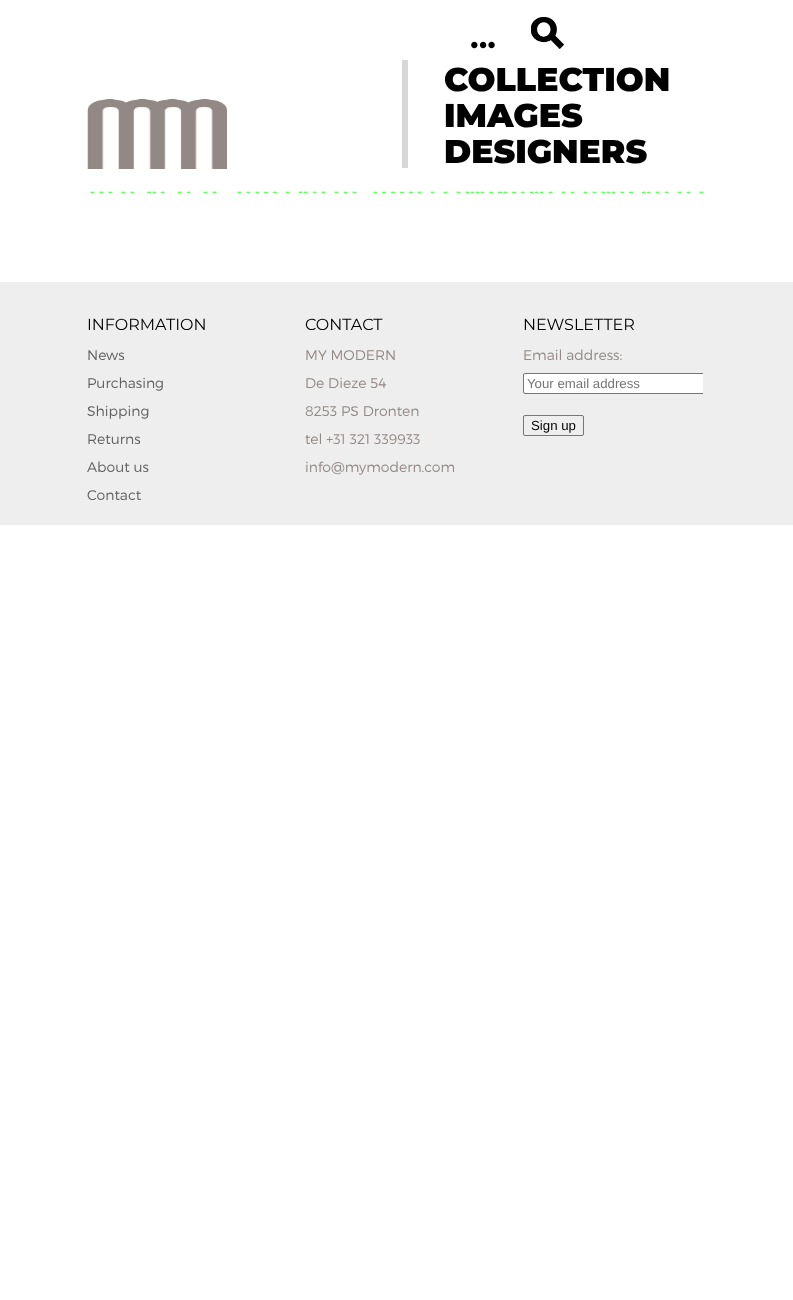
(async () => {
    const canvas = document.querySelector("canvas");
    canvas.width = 793;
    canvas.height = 1300;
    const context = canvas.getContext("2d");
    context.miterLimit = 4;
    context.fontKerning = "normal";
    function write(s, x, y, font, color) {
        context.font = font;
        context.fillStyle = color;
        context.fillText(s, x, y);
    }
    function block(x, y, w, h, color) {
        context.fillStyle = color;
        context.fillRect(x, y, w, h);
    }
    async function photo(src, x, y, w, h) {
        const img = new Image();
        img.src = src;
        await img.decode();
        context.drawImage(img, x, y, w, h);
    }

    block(0, 0, 793, 1300, "rgb(255, 255, 255)");
    await photo("media/1.png", 87, 99, 140, 70);
    write("...", 470, 48, "bold 33px Montserrat", "rgb(0, 0, 0)");
    await photo("media/2.png", 531, 17, 33, 32);
    block(402, 60, 6, 108, "rgb(215, 215, 215)");
    write("COLLECTION", 444, 91, "900 33px Montserrat", "rgb(0, 0, 0)");
    write("IMAGES", 444, 127, "900 33px Montserrat", "rgb(0, 0, 0)");
    write("DESIGNERS", 444, 163, "900 33px Montserrat", "rgb(0, 0, 0)");
    await photo("media/3.png", 90, 191, 614, 3);
    block(0, 282, 793, 243, "rgb(238, 238, 238)");
    write("INFORMATION", 87, 330, "16px Montserrat", "rgb(0, 0, 0)");
    write("News", 87, 360, "300 14px Montserrat", "rgb(95, 95, 95)");
    write("Purchasing", 87, 388, "300 14px Montserrat", "rgb(95, 95, 95)");
    write("Shipping", 87, 416, "300 14px Montserrat", "rgb(95, 95, 95)");
    write("Returns", 87, 444, "300 14px Montserrat", "rgb(95, 95, 95)");
    write("About us", 87, 472, "300 14px Montserrat", "rgb(95, 95, 95)");
    write("Contact", 87, 500, "300 14px Montserrat", "rgb(95, 95, 95)");
    write("CONTACT", 305, 330, "16px Montserrat", "rgb(0, 0, 0)");
    write("MY MODERN", 305, 360, "300 14px Montserrat", "rgb(146, 137, 134)");
    write("De Dieze 54", 305, 388, "300 14px Montserrat", "rgb(146, 137, 134)");
    write("8253 PS Dronten", 305, 416, "300 14px Montserrat", "rgb(146, 137, 134)");
    write("tel +31 321 339933", 305, 444, "300 14px Montserrat", "rgb(146, 137, 134)");
    write("info@mymodern.com", 305, 472, "300 14px Montserrat", "rgb(146, 137, 134)");
    write("NEWSLETTER", 523, 330, "16px Montserrat", "rgb(0, 0, 0)");
    write("Email address:", 523, 360, "300 14px Montserrat", "rgb(146, 137, 134)");
    context.fillStyle = "rgb(255, 255, 255)";
    context.beginPath();
    context.roundRect(523, 373, 180, 21, [2, 0, 0, 2]);
    context.fill();
    context.save();
    context.beginPath();
    context.rect(523, 298, 180, 171);
    context.clip();
    context.beginPath();
    context.roundRect(523.5, 373.5, 184, 20, 1.5);
    context.strokeStyle = "rgb(118, 118, 118)";
    context.stroke();
    context.restore();
    write("Your email address", 527, 388, "13.25px Liberation Sans", "rgb(117, 117, 117)");
    context.beginPath();
    context.roundRect(523.5, 415.5, 60, 20, 1.5);
    context.strokeStyle = "rgb(118, 118, 118)";
    context.stroke();
    write("Sign up", 531, 430, "13.25px Liberation Sans", "rgb(0, 0, 0)");
})();
